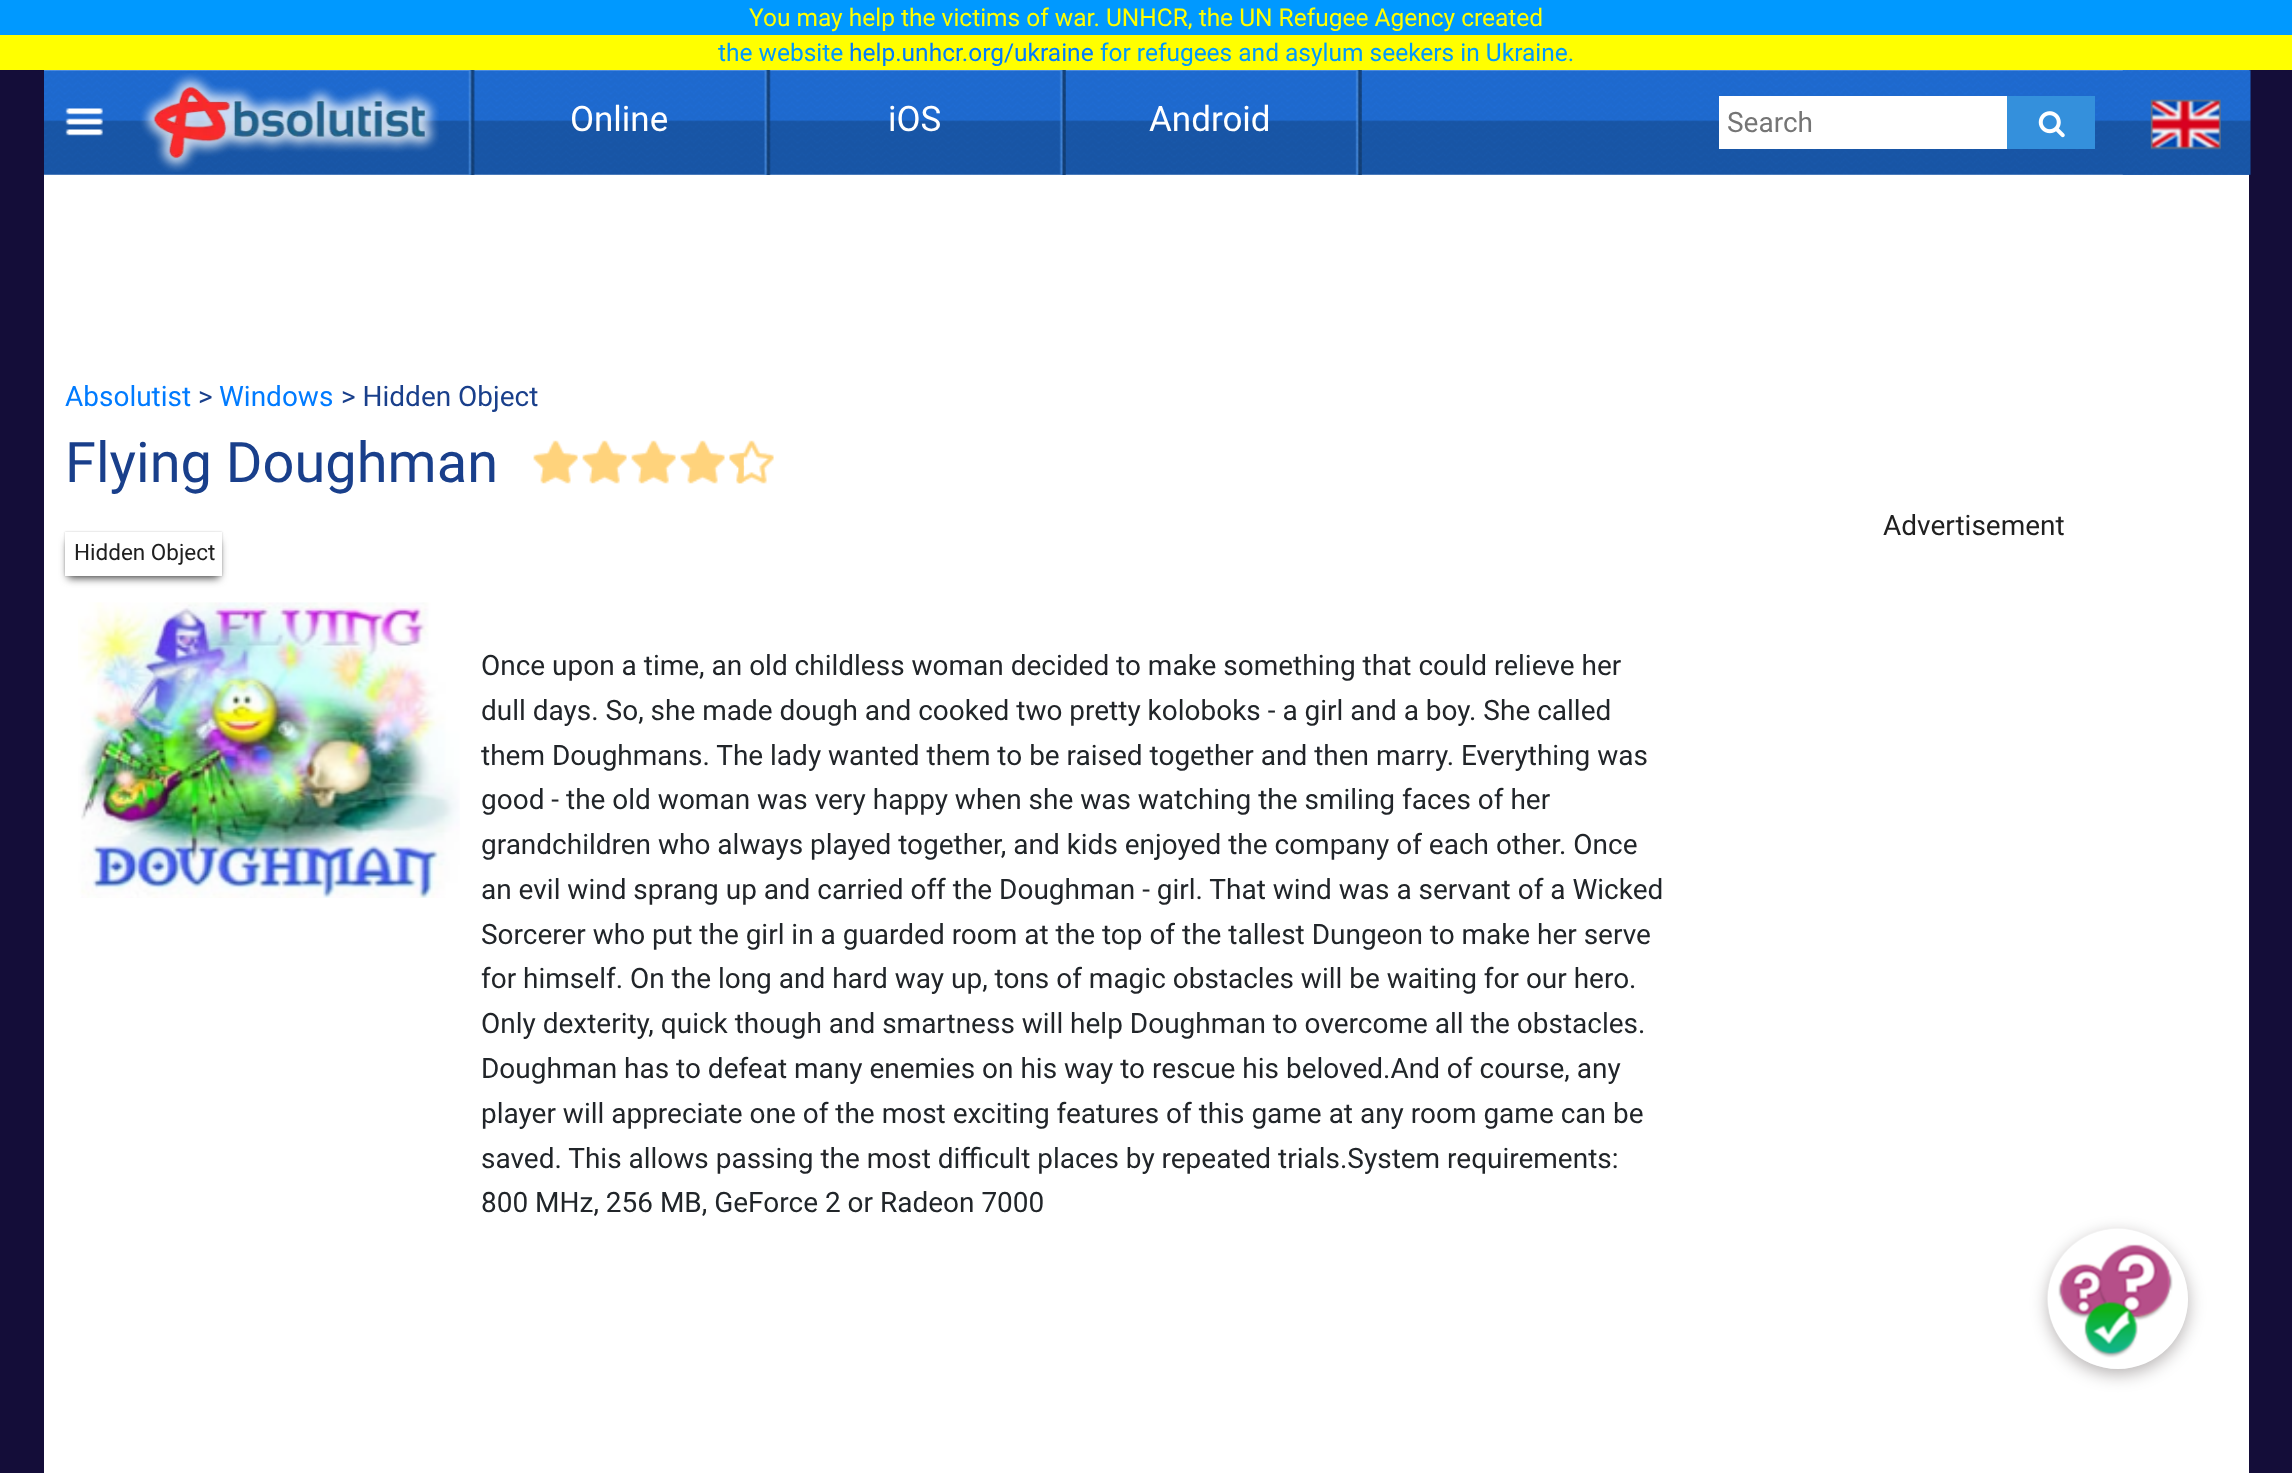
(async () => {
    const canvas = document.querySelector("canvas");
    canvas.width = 2292;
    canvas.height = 1473;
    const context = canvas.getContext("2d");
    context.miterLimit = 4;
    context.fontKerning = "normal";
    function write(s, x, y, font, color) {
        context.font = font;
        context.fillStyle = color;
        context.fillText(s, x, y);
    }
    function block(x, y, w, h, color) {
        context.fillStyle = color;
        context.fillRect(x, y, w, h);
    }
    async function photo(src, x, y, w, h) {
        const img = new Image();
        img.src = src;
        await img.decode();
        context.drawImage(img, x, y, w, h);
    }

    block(0, 0, 2292, 1473, "rgb(20, 13, 57)");
    await photo("media/1.png", 0, 0, 2292, 70);
    write("You may help the victims of war. UNHCR, the UN Refugee Agency created", 749, 26, "24.5px Roboto", "rgb(255, 255, 0)");
    write("the website", 718, 61, "24.5px Roboto", "rgb(0, 153, 255)");
    write("help.unhcr.org/ukraine", 849, 61, "24.5px Roboto", "rgb(0, 123, 255)");
    write("for refugees and asylum seekers in Ukraine.", 1100, 61, "24.5px Roboto", "rgb(0, 153, 255)");
    block(44, 70, 2205, 1403, "rgb(255, 255, 255)");
    await photo("media/2.png", 44, 70, 2205, 105);
    await photo("media/3.png", 65, 108, 38, 28);
    await photo("media/4.png", 140, 73, 299, 99);
    await photo("media/5.png", 468, 70, 7, 105);
    write("Online", 570, 131, "35px Roboto", "rgb(255, 255, 255)");
    await photo("media/6.png", 764, 70, 7, 105);
    write("iOS", 888, 131, "35px Roboto", "rgb(255, 255, 255)");
    await photo("media/7.png", 1059, 70, 7, 105);
    write("Android", 1149, 131, "35px Roboto", "rgb(255, 255, 255)");
    await photo("media/8.png", 1355, 70, 7, 105);
    block(1719, 96, 288, 53, "rgb(255, 255, 255)");
    write("Search", 1727, 132, "28px Roboto", "rgb(117, 117, 117)");
    block(2007, 96, 88, 53, "rgb(52, 144, 220)");
    await photo("media/9.png", 2038, 111, 27, 27);
    await photo("media/10.png", 2122, 70, 129, 105);
    await photo("media/11.png", 2150, 99, 71, 51);
    write("Absolutist", 65, 406, "28px Roboto", "rgb(0, 123, 255)");
    write(">", 198, 406, "28px Roboto", "rgb(25, 63, 139)");
    write("Windows", 219, 406, "28px Roboto", "rgb(0, 123, 255)");
    write("> Hidden Object", 341, 406, "28px Roboto", "rgb(25, 63, 139)");
    write("Flying Doughman", 65, 482, "56px Roboto", "rgb(25, 63, 139)");
    await photo("media/12.png", 533, 440, 45, 44);
    await photo("media/13.png", 582, 440, 45, 44);
    await photo("media/13.png", 631, 440, 45, 44);
    await photo("media/14.png", 680, 440, 45, 44);
    await photo("media/15.png", 729, 440, 45, 44);
    await photo("media/16.png", 729, 452, 15, 32);
    context.save();
    context.beginPath();
    context.moveTo(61, 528);
    context.lineTo(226, 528);
    context.lineTo(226, 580);
    context.lineTo(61, 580);
    context.closePath();
    context.moveTo(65, 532);
    context.lineTo(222, 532);
    context.lineTo(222, 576);
    context.lineTo(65, 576);
    context.closePath();
    context.clip("evenodd");
    context.fillStyle = "rgb(204, 204, 204)";
    context.filter = "blur(1px)";
    context.beginPath();
    context.rect(65, 532, 157, 44);
    context.fill();
    context.filter = "none";
    context.restore();
    context.save();
    context.beginPath();
    context.moveTo(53, 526);
    context.lineTo(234, 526);
    context.lineTo(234, 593);
    context.lineTo(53, 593);
    context.closePath();
    context.moveTo(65, 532);
    context.lineTo(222, 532);
    context.lineTo(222, 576);
    context.lineTo(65, 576);
    context.closePath();
    context.clip("evenodd");
    context.fillStyle = "rgb(68, 68, 68)";
    context.filter = "blur(4.5px)";
    context.beginPath();
    context.rect(68, 541, 151, 37);
    context.fill();
    context.filter = "none";
    context.restore();
    write("Hidden Object", 74, 560, "22.5px Roboto", "rgb(32, 32, 32)");
    write("Advertisement", 1883, 535, "28px Roboto", "rgb(32, 32, 32)");
    write("them Doughmans. The lady wanted them to be raised together and then marry. Everything was", 481, 765, "28px Roboto", "rgb(33, 37, 41)");
    block(480, 750, 1, 2, "rgb(255, 255, 255)");
    await photo("media/17.png", 78, 602, 382, 296);
    write("Once upon a time, an old childless woman decided to make something that could relieve her", 481, 675, "28px Roboto", "rgb(33, 37, 41)");
    write("dull days. So, she made dough and cooked two pretty koloboks - a girl and a boy. She called", 481, 720, "28px Roboto", "rgb(33, 37, 41)");
    write("good - the old woman was very happy when she was watching the smiling faces of her", 481, 809, "28px Roboto", "rgb(33, 37, 41)");
    write("grandchildren who always played together, and kids enjoyed the company of each other. Once", 481, 854, "28px Roboto", "rgb(33, 37, 41)");
    write("an evil wind sprang up and carried off the Doughman - girl. That wind was a servant of a Wicked", 481, 899, "28px Roboto", "rgb(33, 37, 41)");
    write("Sorcerer who put the girl in a guarded room at the top of the tallest Dungeon to make her serve", 481, 944, "28px Roboto", "rgb(33, 37, 41)");
    write("for himself. On the long and hard way up, tons of magic obstacles will be waiting for our hero.", 481, 988, "28px Roboto", "rgb(33, 37, 41)");
    write("Only dexterity, quick though and smartness will help Doughman to overcome all the obstacles.", 481, 1033, "28px Roboto", "rgb(33, 37, 41)");
    write("Doughman has to defeat many enemies on his way to rescue his beloved.And of course, any", 481, 1078, "28px Roboto", "rgb(33, 37, 41)");
    write("player will appreciate one of the most exciting features of this game at any room game can be", 481, 1123, "28px Roboto", "rgb(33, 37, 41)");
    write("saved. This allows passing the most difficult places by repeated trials.System requirements:", 481, 1168, "28px Roboto", "rgb(33, 37, 41)");
    write("800 MHz, 256 MB, GeForce 2 or Radeon 7000", 481, 1212, "28px Roboto", "rgb(33, 37, 41)");
    context.save();
    context.beginPath();
    context.moveTo(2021, 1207);
    context.lineTo(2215, 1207);
    context.lineTo(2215, 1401);
    context.lineTo(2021, 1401);
    context.closePath();
    context.moveTo(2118, 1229);
    context.bezierCurveTo(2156.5, 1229, 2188, 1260.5, 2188, 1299);
    context.bezierCurveTo(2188, 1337.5, 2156.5, 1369, 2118, 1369);
    context.bezierCurveTo(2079.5, 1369, 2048, 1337.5, 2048, 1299);
    context.bezierCurveTo(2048, 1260.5, 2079.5, 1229, 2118, 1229);
    context.closePath();
    context.clip("evenodd");
    context.fillStyle = "rgba(14, 1, 1, 0.3)";
    context.filter = "blur(8.5px)";
    context.beginPath();
    context.roundRect(2048, 1234, 140, 140, 70);
    context.fill();
    context.filter = "none";
    context.restore();
    await photo("media/18.png", 2047, 1228, 141, 141);
})();
